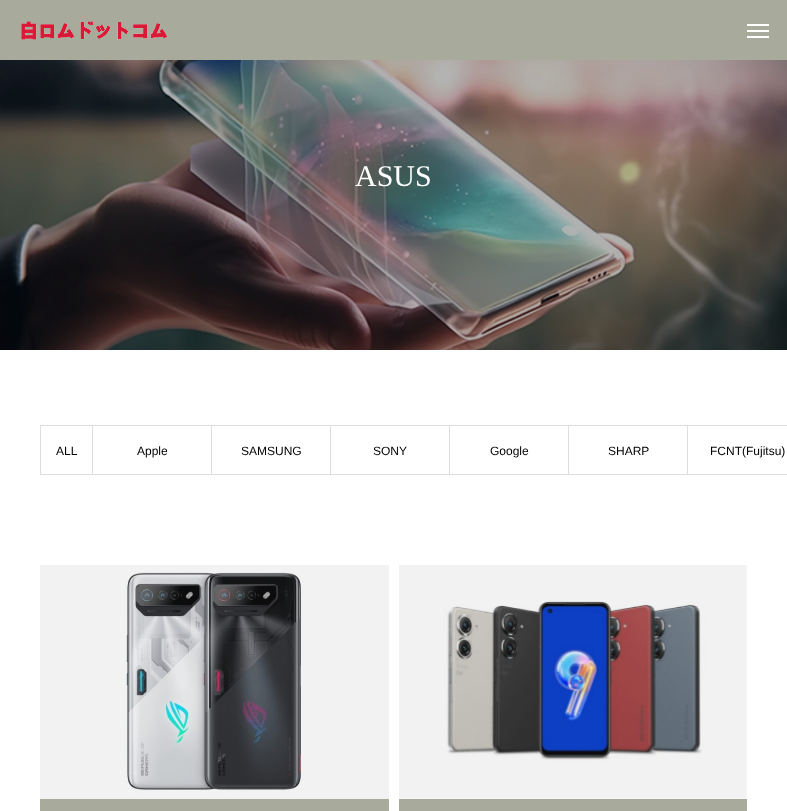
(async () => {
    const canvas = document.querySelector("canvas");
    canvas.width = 787;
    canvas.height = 811;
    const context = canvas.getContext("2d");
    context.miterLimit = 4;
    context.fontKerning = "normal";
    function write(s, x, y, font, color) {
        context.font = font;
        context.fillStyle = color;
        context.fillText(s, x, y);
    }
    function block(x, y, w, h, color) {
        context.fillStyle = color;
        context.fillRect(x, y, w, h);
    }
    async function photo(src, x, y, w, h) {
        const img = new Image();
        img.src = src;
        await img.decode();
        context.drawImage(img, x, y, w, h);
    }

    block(0, 0, 787, 811, "rgb(255, 255, 255)");
    block(0, 0, 787, 60, "rgb(168, 171, 156)");
    await photo("media/1.png", 21, 21, 146, 19);
    block(747, 24, 22, 2, "rgb(255, 255, 255)");
    block(747, 30, 22, 2, "rgb(255, 255, 255)");
    block(747, 36, 22, 2, "rgb(255, 255, 255)");
    await photo("media/2.png", 0, 60, 787, 290);
    write("ASUS", 355, 186, "30px Liberation Serif", "rgb(255, 255, 255)");
    context.strokeStyle = "rgb(221, 221, 221)";
    context.strokeRect(40.5, 425.5, 52, 49);
    write("ALL", 56, 455, "12px Liberation Sans", "rgb(0, 0, 0)");
    context.strokeRect(92.5, 425.5, 119, 49);
    write("Apple", 137, 455, "12px Liberation Sans", "rgb(0, 0, 0)");
    context.strokeRect(211.5, 425.5, 119, 49);
    write("SAMSUNG", 241, 455, "12px Liberation Sans", "rgb(0, 0, 0)");
    context.strokeRect(330.5, 425.5, 119, 49);
    write("SONY", 373, 455, "12px Liberation Sans", "rgb(0, 0, 0)");
    context.strokeRect(449.5, 425.5, 119, 49);
    write("Google", 490, 455, "12px Liberation Sans", "rgb(0, 0, 0)");
    context.strokeRect(568.5, 425.5, 119, 49);
    write("SHARP", 608, 455, "12px Liberation Sans", "rgb(0, 0, 0)");
    context.strokeRect(687.5, 425.5, 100, 49);
    write("FCNT(Fujitsu)", 710, 455, "12px Liberation Sans", "rgb(0, 0, 0)");
    await photo("media/3.png", 40, 565, 349, 234);
    block(40, 799, 349, 12, "rgb(168, 171, 156)");
    await photo("media/4.png", 399, 565, 348, 234);
    block(399, 799, 348, 12, "rgb(168, 171, 156)");
})();
